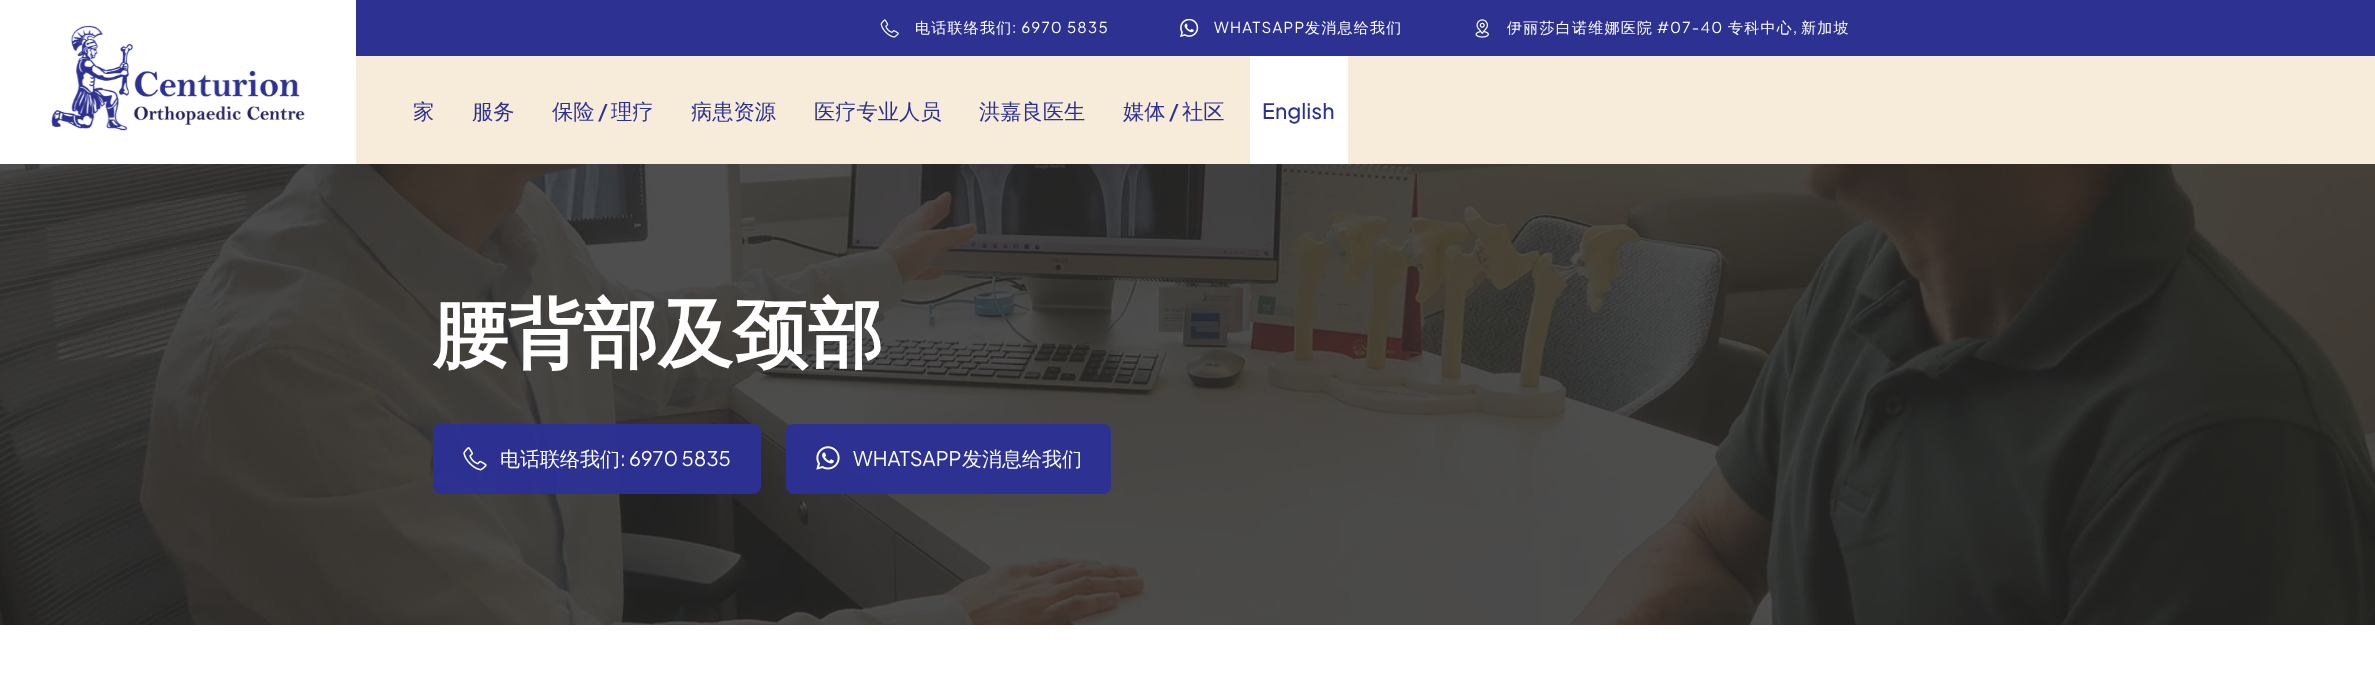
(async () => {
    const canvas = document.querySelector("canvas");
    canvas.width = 2375;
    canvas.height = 691;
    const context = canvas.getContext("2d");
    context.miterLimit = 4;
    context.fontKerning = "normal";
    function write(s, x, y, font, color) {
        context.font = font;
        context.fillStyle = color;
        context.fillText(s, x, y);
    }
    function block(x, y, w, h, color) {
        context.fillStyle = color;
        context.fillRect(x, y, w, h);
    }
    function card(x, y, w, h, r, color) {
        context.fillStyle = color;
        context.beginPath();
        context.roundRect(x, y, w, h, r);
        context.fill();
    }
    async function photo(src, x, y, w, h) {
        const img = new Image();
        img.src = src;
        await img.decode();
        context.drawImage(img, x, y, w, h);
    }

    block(0, 0, 2375, 691, "rgb(255, 255, 255)");
    await photo("media/1.png", 51, 25, 254, 106);
    block(356, 0, 2019, 56, "rgb(45, 49, 146)");
    await photo("media/2.png", 880, 19, 19, 19);
    context.letterSpacing = "1.25px";
    write("电话联络我们", 915, 33, "500 15px WenQuanYi Zen Hei", "rgb(255, 255, 255)");
    write(": 6970 5835", 1012, 33, "15px Plus Jakarta Sans", "rgb(255, 255, 255)");
    await photo("media/3.png", 1180, 19, 19, 18);
    write("WHATSAPP", 1214, 33, "15px Plus Jakarta Sans", "rgb(255, 255, 255)");
    write("发消息给我们", 1305, 33, "500 15px WenQuanYi Zen Hei", "rgb(255, 255, 255)");
    await photo("media/4.png", 1475, 19, 14, 19);
    write("伊丽莎白诺维娜医院", 1507, 33, "500 15px WenQuanYi Zen Hei", "rgb(255, 255, 255)");
    write("#07-40", 1657, 33, "15px Plus Jakarta Sans", "rgb(255, 255, 255)");
    write("专科中心", 1728, 33, "500 15px WenQuanYi Zen Hei", "rgb(255, 255, 255)");
    write(",", 1793, 33, "15px Plus Jakarta Sans", "rgb(255, 255, 255)");
    write("新加坡", 1801, 33, "500 15px WenQuanYi Zen Hei", "rgb(255, 255, 255)");
    block(356, 56, 2019, 108, "rgb(247, 236, 218)");
    context.letterSpacing = "0px";
    write("家", 413, 119, "500 21.25px WenQuanYi Zen Hei", "rgb(45, 49, 146)");
    write("服务", 472, 119, "500 21.25px WenQuanYi Zen Hei", "rgb(45, 49, 146)");
    write("保险", 552, 119, "500 21.25px WenQuanYi Zen Hei", "rgb(45, 49, 146)");
    write("/", 598, 119, "500 21.25px Plus Jakarta Sans", "rgb(45, 49, 146)");
    write("理疗", 611, 119, "500 21.25px WenQuanYi Zen Hei", "rgb(45, 49, 146)");
    write("病患资源", 691, 119, "500 21.25px WenQuanYi Zen Hei", "rgb(45, 49, 146)");
    write("医疗专业人员", 814, 119, "500 21.25px WenQuanYi Zen Hei", "rgb(45, 49, 146)");
    write("洪嘉良医生", 979, 119, "500 21.25px WenQuanYi Zen Hei", "rgb(45, 49, 146)");
    write("媒体", 1123, 119, "500 21.25px WenQuanYi Zen Hei", "rgb(45, 49, 146)");
    write("/", 1169, 119, "500 21.25px Plus Jakarta Sans", "rgb(45, 49, 146)");
    write("社区", 1182, 119, "500 21.25px WenQuanYi Zen Hei", "rgb(45, 49, 146)");
    block(1250, 56, 98, 108, "rgb(255, 255, 255)");
    write("English", 1262, 119, "500 21.25px Plus Jakarta Sans", "rgb(45, 49, 146)");
    await photo("media/5.png", 0, 164, 2375, 461);
    write("腰背部及颈部", 433, 360, "bold 75px WenQuanYi Zen Hei", "rgb(255, 255, 255)");
    card(433, 424, 328, 70, 8, "rgba(45, 49, 146, 0.99)");
    await photo("media/6.png", 463, 447, 24, 24);
    write("电话联络我们", 500, 466, "500 20px WenQuanYi Zen Hei", "rgb(255, 255, 255)");
    write(": 6970 5835", 620, 466, "20px Plus Jakarta Sans", "rgb(255, 255, 255)");
    card(786, 424, 325, 70, 8, "rgba(45, 49, 146, 0.99)");
    await photo("media/7.png", 816, 446, 24, 24);
    write("WHATSAPP", 853, 466, "20px Plus Jakarta Sans", "rgb(255, 255, 255)");
    write("发消息给我们", 962, 466, "500 20px WenQuanYi Zen Hei", "rgb(255, 255, 255)");
})();
